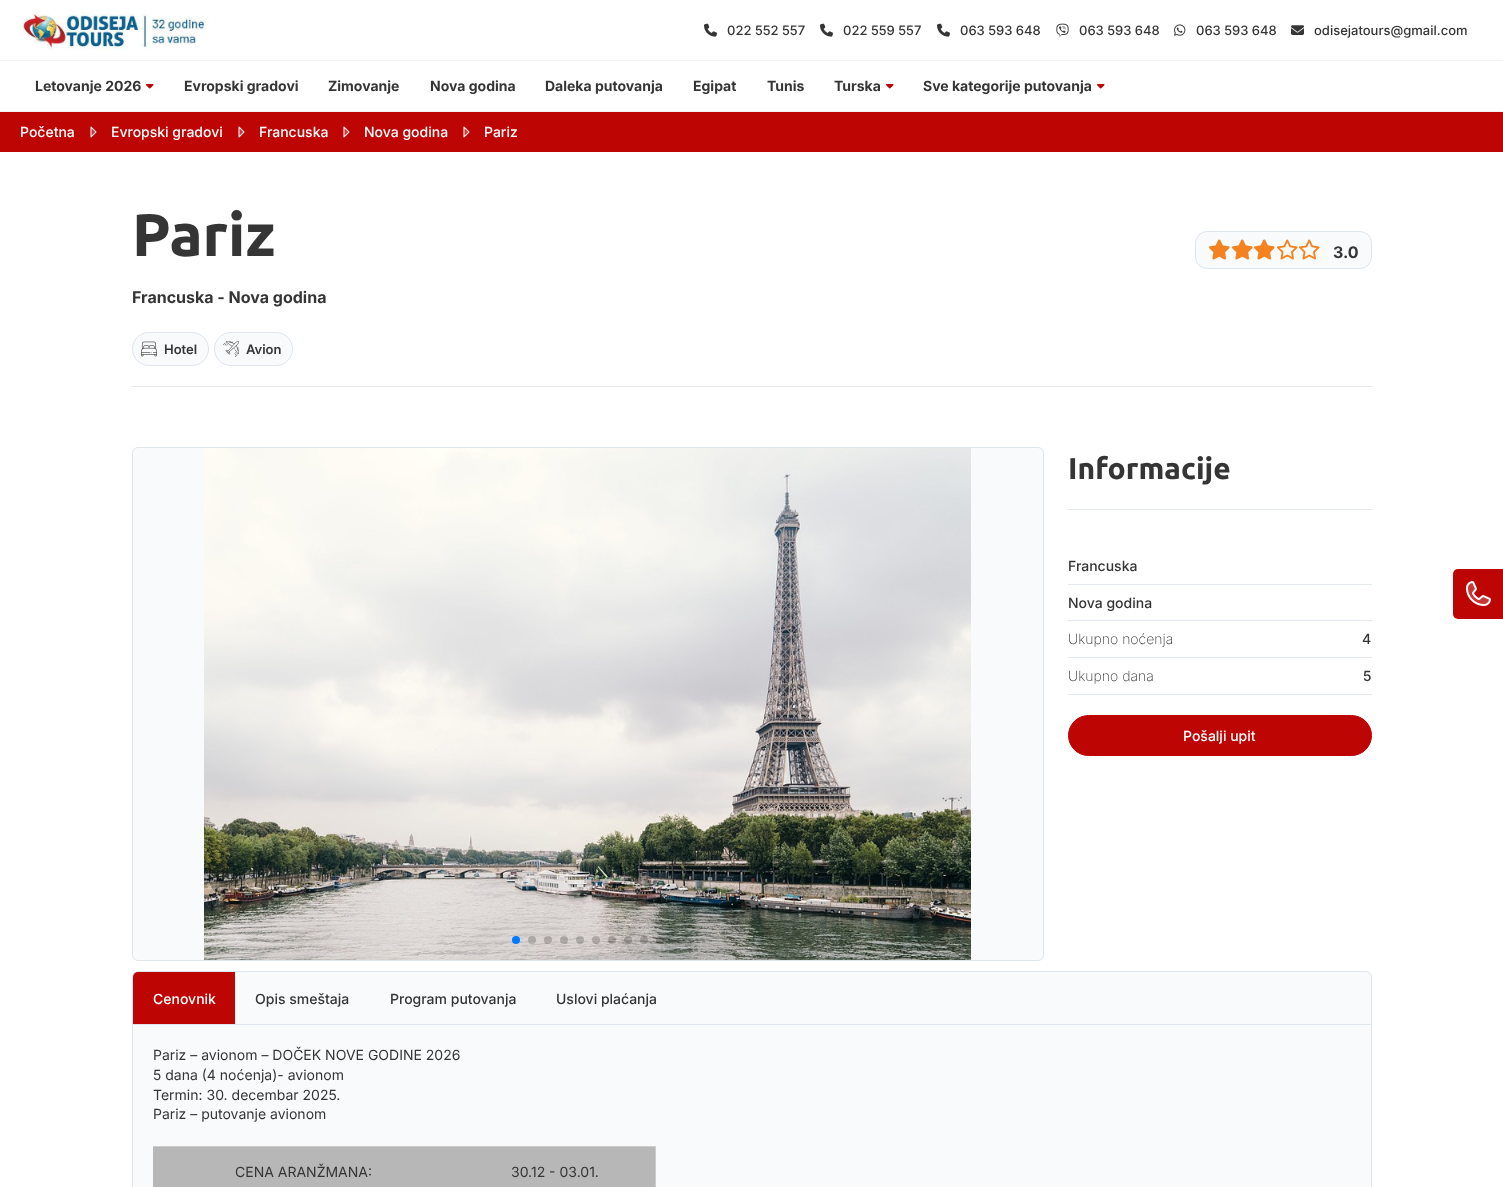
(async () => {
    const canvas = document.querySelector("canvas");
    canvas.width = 1503;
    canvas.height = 1187;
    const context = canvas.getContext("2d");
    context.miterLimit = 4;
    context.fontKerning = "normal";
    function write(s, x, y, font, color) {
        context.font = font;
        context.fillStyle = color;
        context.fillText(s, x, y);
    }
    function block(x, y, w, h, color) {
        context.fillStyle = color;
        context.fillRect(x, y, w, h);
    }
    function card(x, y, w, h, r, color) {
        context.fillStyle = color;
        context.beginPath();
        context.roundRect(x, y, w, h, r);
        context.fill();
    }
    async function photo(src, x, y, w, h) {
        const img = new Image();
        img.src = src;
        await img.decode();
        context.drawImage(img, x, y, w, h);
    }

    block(0, 0, 1503, 1187, "rgb(255, 255, 255)");
    block(0, 111, 1503, 1, "rgb(242, 242, 242)");
    block(0, 60, 1503, 1, "rgb(242, 242, 242)");
    await photo("media/1.png", 20, 10, 189, 40);
    await photo("media/2.png", 704, 23, 13, 14);
    write("022 552 557", 727, 35, "500 13px Inter", "rgb(53, 53, 53)");
    await photo("media/2.png", 820, 23, 13, 14);
    write("022 559 557", 843, 35, "500 13px Inter", "rgb(53, 53, 53)");
    await photo("media/2.png", 937, 23, 13, 14);
    write("063 593 648", 960, 35, "500 13px Inter", "rgb(53, 53, 53)");
    await photo("media/3.png", 1056, 23, 13, 14);
    write("063 593 648", 1079, 35, "500 13px Inter", "rgb(53, 53, 53)");
    await photo("media/4.png", 1174, 24, 12, 12);
    write("063 593 648", 1196, 35, "500 13px Inter", "rgb(53, 53, 53)");
    await photo("media/5.png", 1291, 25, 13, 10);
    write("odisejatours@gmail.com", 1314, 35, "500 13px Inter", "rgb(53, 53, 53)");
    write("Letovanje 2026", 35, 91, "bold 14px Inter", "rgb(53, 53, 53)");
    await photo("media/6.png", 146, 84, 8, 5);
    write("Evropski gradovi", 184, 91, "bold 14px Inter", "rgb(53, 53, 53)");
    write("Zimovanje", 328, 91, "bold 14px Inter", "rgb(53, 53, 53)");
    write("Nova godina", 430, 91, "bold 14px Inter", "rgb(53, 53, 53)");
    write("Daleka putovanja", 545, 91, "bold 14px Inter", "rgb(53, 53, 53)");
    write("Egipat", 693, 91, "bold 14px Inter", "rgb(53, 53, 53)");
    write("Tunis", 767, 91, "bold 14px Inter", "rgb(53, 53, 53)");
    write("Turska", 834, 91, "bold 14px Inter", "rgb(53, 53, 53)");
    await photo("media/6.png", 886, 84, 8, 5);
    write("Sve kategorije putovanja", 923, 91, "bold 14px Inter", "rgb(53, 53, 53)");
    await photo("media/6.png", 1097, 84, 8, 5);
    context.fillStyle = "rgb(189, 5, 4)";
    context.beginPath();
    context.roundRect(1453, 569, 50, 50, [5, 0, 0, 5]);
    context.fill();
    await photo("media/7.png", 1466, 581, 25, 25);
    block(0, 112, 1503, 40, "rgb(189, 5, 4)");
    write("Početna", 20, 137, "500 14px Inter", "rgb(255, 255, 255)");
    await photo("media/8.png", 90, 126, 7, 12);
    write("Evropski gradovi", 111, 137, "500 14px Inter", "rgb(255, 255, 255)");
    await photo("media/8.png", 238, 126, 7, 12);
    write("Francuska", 259, 137, "500 14px Inter", "rgb(255, 255, 255)");
    await photo("media/8.png", 343, 126, 7, 12);
    write("Nova godina", 364, 137, "500 14px Inter", "rgb(255, 255, 255)");
    await photo("media/8.png", 463, 126, 7, 12);
    write("Pariz", 484, 137, "500 14px Inter", "rgb(255, 255, 255)");
    block(132, 386, 1240, 1, "rgb(232, 232, 232)");
    write("Pariz", 132, 256, "bold 60px Ubuntu", "rgb(53, 53, 53)");
    write("Francuska - Nova godina", 132, 303, "bold 16px Inter", "rgb(53, 53, 53)");
    context.fillStyle = "rgb(249, 250, 252)";
    context.beginPath();
    context.roundRect(1195.5, 231.5, 176, 37, 11.5);
    context.fill();
    context.strokeStyle = "rgb(223, 229, 238)";
    context.stroke();
    await photo("media/9.png", 1209, 239, 21, 21);
    await photo("media/9.png", 1232, 239, 21, 21);
    await photo("media/9.png", 1254, 239, 21, 21);
    await photo("media/10.png", 1277, 239, 21, 21);
    await photo("media/10.png", 1299, 239, 21, 21);
    write("3.0", 1333, 258, "bold 16px Inter", "rgb(53, 53, 53)");
    card(132, 332, 77, 34, 17, "rgb(249, 250, 252)");
    context.beginPath();
    context.roundRect(132.5, 332.5, 76, 33, 16.5);
    context.strokeStyle = "rgba(118, 144, 178, 0.2)";
    context.stroke();
    await photo("media/11.png", 141, 341, 16, 16);
    write("Hotel", 164, 354, "600 13px Inter", "rgb(53, 53, 53)");
    card(214, 332, 79, 34, 17, "rgb(249, 250, 252)");
    context.beginPath();
    context.roundRect(214.5, 332.5, 78, 33, 16.5);
    context.stroke();
    await photo("media/12.png", 223, 341, 16, 16);
    write("Avion", 246, 354, "600 13px Inter", "rgb(53, 53, 53)");
    context.fillStyle = "rgb(249, 250, 252)";
    context.beginPath();
    context.roundRect(132.5, 447.5, 911, 513, 5.5);
    context.fill();
    context.strokeStyle = "rgb(223, 229, 237)";
    context.stroke();
    await photo("media/13.png", 204, 448, 767, 512);
    context.fillStyle = "rgb(0, 122, 255)";
    context.beginPath();
    context.arc(516, 940, 4, 0, Math.PI * 2);
    context.fill();
    context.fillStyle = "rgba(0, 0, 0, 0.2)";
    context.beginPath();
    context.arc(532, 940, 4, 0, Math.PI * 2);
    context.fill();
    context.beginPath();
    context.arc(548, 940, 4, 0, Math.PI * 2);
    context.fill();
    context.beginPath();
    context.arc(564, 940, 4, 0, Math.PI * 2);
    context.fill();
    context.beginPath();
    context.arc(580, 940, 4, 0, Math.PI * 2);
    context.fill();
    context.beginPath();
    context.arc(596, 940, 4, 0, Math.PI * 2);
    context.fill();
    context.beginPath();
    context.arc(612, 940, 4, 0, Math.PI * 2);
    context.fill();
    context.beginPath();
    context.arc(628, 940, 4, 0, Math.PI * 2);
    context.fill();
    context.beginPath();
    context.arc(644, 940, 4, 0, Math.PI * 2);
    context.fill();
    context.beginPath();
    context.arc(660, 940, 4, 0, Math.PI * 2);
    context.fill();
    block(1068, 509, 304, 1, "rgb(228, 233, 240)");
    write("Informacije", 1068, 479, "bold 30px Ubuntu", "rgb(53, 53, 53)");
    block(1068, 584, 304, 1, "rgb(228, 233, 240)");
    write("Francuska", 1068, 571, "500 14px Inter", "rgb(53, 53, 53)");
    block(1068, 620, 304, 1, "rgb(228, 233, 240)");
    write("Nova godina", 1068, 608, "500 14px Inter", "rgb(53, 53, 53)");
    block(1068, 657, 304, 1, "rgb(228, 233, 240)");
    write("Ukupno noćenja", 1068, 644, "200 14px Inter", "rgb(53, 53, 53)");
    write("4", 1362, 644, "500 14px Inter", "rgb(53, 53, 53)");
    block(1068, 694, 304, 1, "rgb(228, 233, 240)");
    write("Ukupno dana", 1068, 681, "200 14px Inter", "rgb(53, 53, 53)");
    write("5", 1363, 681, "500 14px Inter", "rgb(53, 53, 53)");
    context.fillStyle = "rgb(189, 5, 4)";
    context.beginPath();
    context.roundRect(1068.5, 715.5, 303, 40, 20);
    context.fill();
    context.strokeStyle = "rgb(189, 5, 4)";
    context.stroke();
    write("Pošalji upit", 1183, 741, "500 14px Inter", "rgb(255, 255, 255)");
    context.fillStyle = "rgb(249, 250, 252)";
    context.beginPath();
    context.roundRect(132.5, 971.5, 1239, 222, 5.5);
    context.fill();
    context.strokeStyle = "rgb(223, 229, 237)";
    context.stroke();
    block(133, 1024, 1238, 1, "rgb(223, 229, 237)");
    context.fillStyle = "rgb(189, 5, 4)";
    context.beginPath();
    context.roundRect(133, 972, 102, 52, [5, 0, 0, 0]);
    context.fill();
    write("Cenovnik", 153, 1004, "500 14px Inter", "rgb(255, 255, 255)");
    write("Opis smeštaja", 255, 1004, "500 14px Inter", "rgb(53, 53, 53)");
    write("Program putovanja", 390, 1004, "500 14px Inter", "rgb(53, 53, 53)");
    write("Uslovi plaćanja", 556, 1004, "500 14px Inter", "rgb(53, 53, 53)");
    write("Pariz – avionom – DOČEK NOVE GODINE 2026", 153, 1060, "14px Inter", "rgb(53, 53, 53)");
    write("5 dana (4 noćenja)- avionom", 153, 1080, "14px Inter", "rgb(53, 53, 53)");
    write("Termin: 30. decembar 2025.", 153, 1100, "14px Inter", "rgb(53, 53, 53)");
    write("Pariz – putovanje avionom", 153, 1119, "14px Inter", "rgb(53, 53, 53)");
    block(153, 1147, 502, 40, "rgb(183, 183, 183)");
    write("CENA ARANŽMANA:", 235, 1177, "14px Inter", "rgb(53, 53, 53)");
    block(153, 1146, 503, 1, "rgb(204, 204, 204)");
    block(655, 1146, 1, 41, "rgb(204, 204, 204)");
    write("30.12 - 03.01.", 511, 1177, "14px Inter", "rgb(53, 53, 53)");
})();
